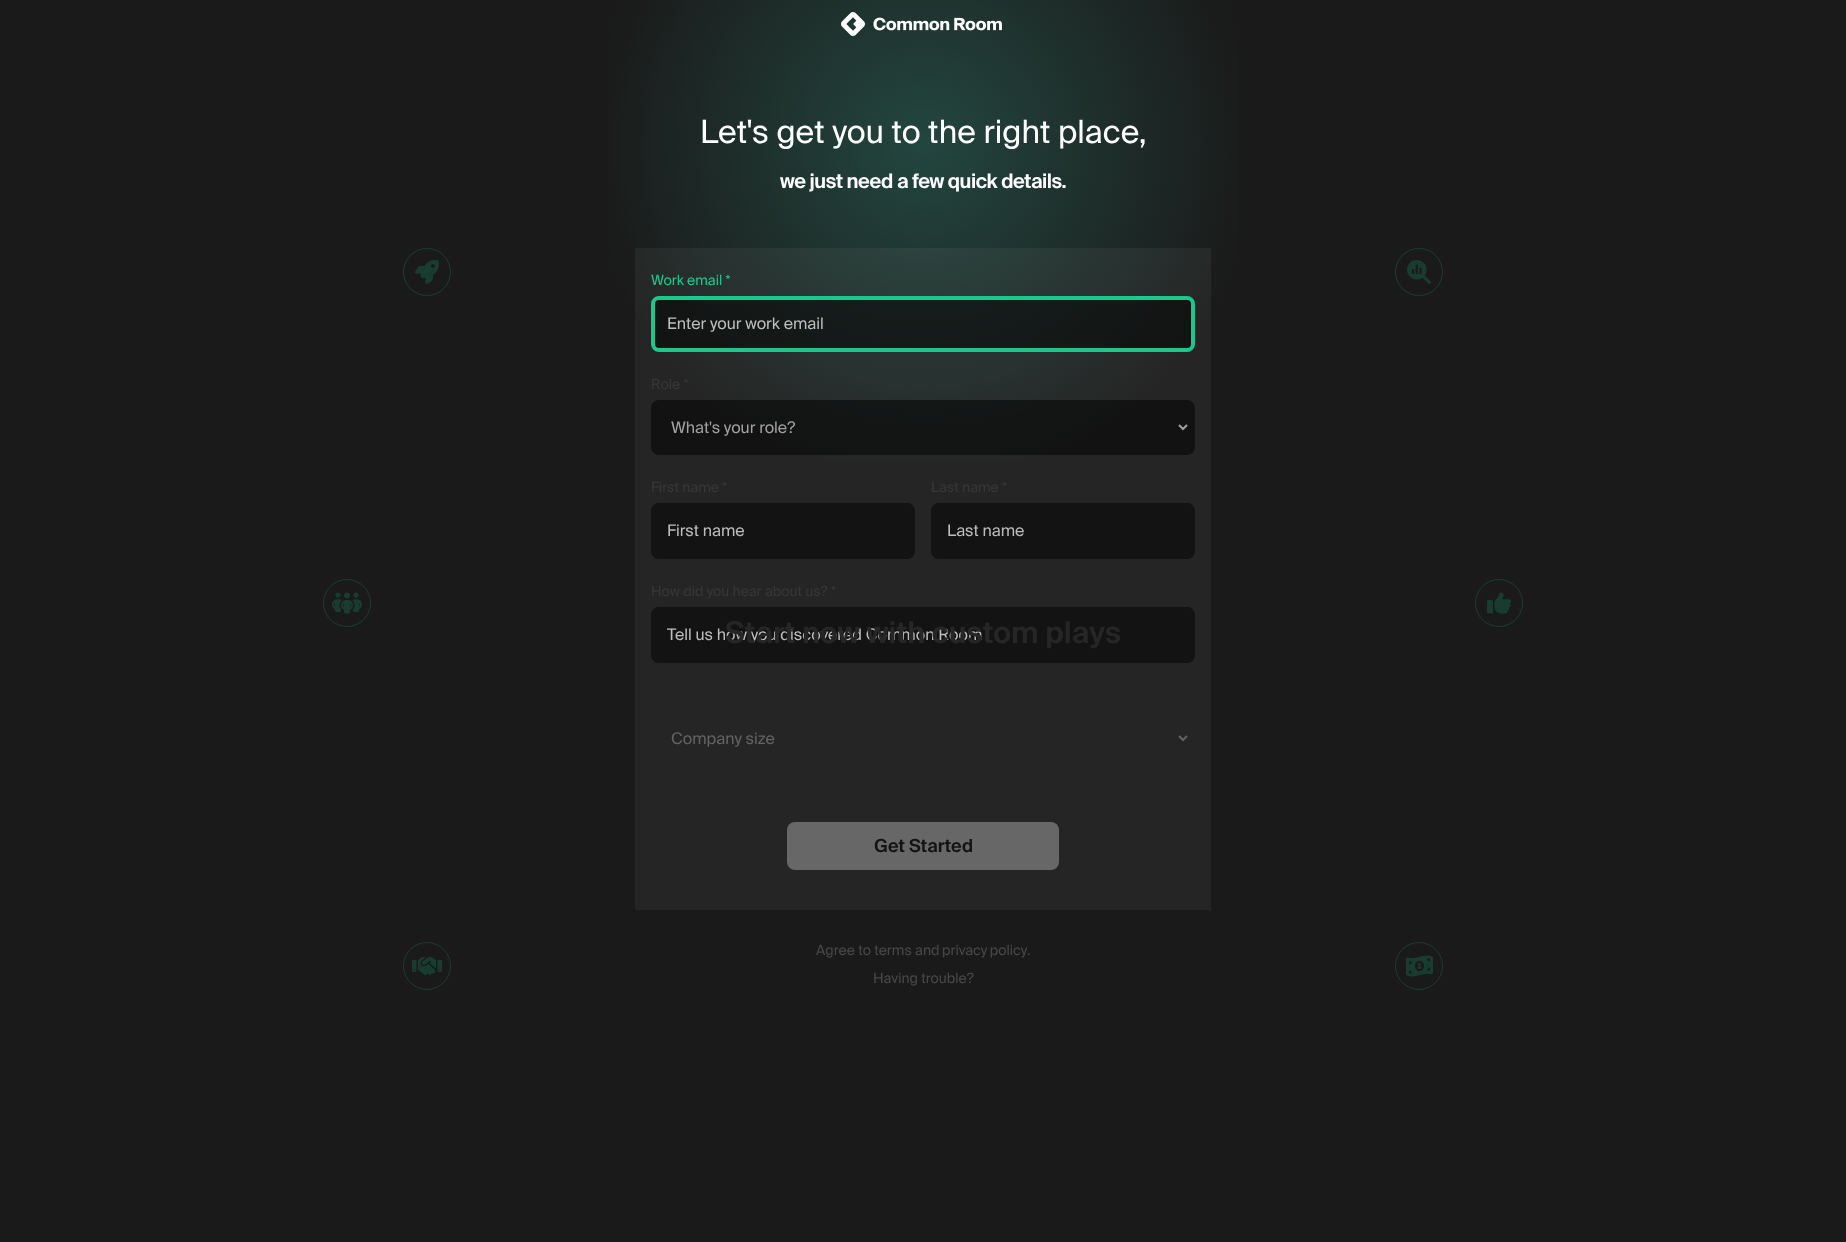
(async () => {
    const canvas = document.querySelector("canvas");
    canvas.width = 1846;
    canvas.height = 1242;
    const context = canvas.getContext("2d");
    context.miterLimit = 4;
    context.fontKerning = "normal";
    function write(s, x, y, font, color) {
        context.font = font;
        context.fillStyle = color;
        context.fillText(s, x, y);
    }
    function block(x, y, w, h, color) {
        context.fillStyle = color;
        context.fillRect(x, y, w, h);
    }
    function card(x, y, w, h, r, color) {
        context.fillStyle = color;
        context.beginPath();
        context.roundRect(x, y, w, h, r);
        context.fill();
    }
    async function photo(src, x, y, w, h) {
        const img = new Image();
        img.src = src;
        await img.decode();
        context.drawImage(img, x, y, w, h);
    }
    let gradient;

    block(0, 0, 1846, 1242, "rgb(26, 26, 26)");
    gradient = context.createRadialGradient(923, 144, 0, 923, 144, 670);
    gradient.addColorStop(0, "rgb(35, 70, 63)");
    gradient.addColorStop(0.5, "rgb(26, 26, 26)");
    context.fillStyle = gradient;
    context.fillRect(608, 0, 630, 460);
    await photo("media/1.png", 841, 12, 161, 24);
    write("Let's get you to the right place,", 700, 143, "32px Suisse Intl", "rgb(255, 255, 255)");
    context.letterSpacing = "-0.5px";
    write("we just need a few quick details.", 780, 188, "600 20px Suisse Intl", "rgb(255, 255, 255)");
    context.beginPath();
    context.arc(347, 603, 23.5, 0, Math.PI * 2);
    context.strokeStyle = "rgb(26, 61, 49)";
    context.stroke();
    await photo("media/2.png", 332, 592, 30, 22);
    context.beginPath();
    context.arc(427, 272, 23.5, 0, Math.PI * 2);
    context.stroke();
    await photo("media/3.png", 415, 260, 24, 24);
    block(635, 248, 576, 662, "rgba(255, 255, 255, 0.05)");
    context.letterSpacing = "0px";
    write("Work email *", 651, 285, "14px Suisse Intl", "rgb(27, 200, 140)");
    context.fillStyle = "rgba(0, 0, 0, 0.5)";
    context.beginPath();
    context.roundRect(653, 298, 540, 52, 6);
    context.fill();
    context.strokeStyle = "rgb(27, 200, 140)";
    context.lineWidth = 4;
    context.stroke();
    write("Enter your work email", 667, 329, "16px Suisse Intl", "rgb(190, 189, 189)");
    write("Role *", 651, 389, "14px Suisse Intl", "rgb(55, 55, 55)");
    card(651, 400, 544, 55, 8, "rgba(0, 0, 0, 0.5)");
    context.beginPath();
    context.moveTo(1179, 425);
    context.lineTo(1183, 429);
    context.lineTo(1187, 425);
    context.strokeStyle = "rgb(160, 160, 160)";
    context.lineWidth = 2;
    context.stroke();
    write("What's your role?", 671, 433, "16px Suisse Intl", "rgb(161, 161, 161)");
    write("First name *", 651, 492, "14px Suisse Intl", "rgb(55, 55, 55)");
    card(651, 503, 264, 56, 8, "rgb(19, 19, 19)");
    write("First name", 667, 536, "16px Suisse Intl", "rgb(190, 189, 189)");
    write("Last name *", 931, 492, "14px Suisse Intl", "rgb(55, 55, 55)");
    card(931, 503, 264, 56, 8, "rgb(19, 19, 19)");
    write("Last name", 947, 536, "16px Suisse Intl", "rgb(190, 189, 189)");
    write("How did you hear about us? *", 651, 596, "14px Suisse Intl", "rgb(55, 55, 55)");
    card(651, 607, 544, 56, 8, "rgb(19, 19, 19)");
    write("Tell us how you discovered Common Room", 667, 640, "16px Suisse Intl", "rgb(190, 189, 189)");
    context.beginPath();
    context.moveTo(1179, 736);
    context.lineTo(1183, 740);
    context.lineTo(1187, 736);
    context.strokeStyle = "rgb(99, 99, 99)";
    context.stroke();
    write("Company size", 671, 744, "16px Suisse Intl", "rgb(99, 99, 99)");
    card(787, 822, 272, 48, 8, "rgb(103, 103, 103)");
    write("Get Started", 874, 852, "600 18px Suisse Intl", "rgb(19, 19, 19)");
    write("Agree to terms and", 816, 955, "14px Suisse Intl", "rgb(72, 72, 72)");
    context.wordSpacing = "-1px";
    write("privacy policy", 942, 955, "14px Suisse Intl", "rgb(72, 72, 72)");
    context.wordSpacing = "0px";
    write(".", 1027, 955, "14px Suisse Intl", "rgb(72, 72, 72)");
    write("Having trouble?", 873, 983, "14px Suisse Intl", "rgb(72, 72, 72)");
    write("Start now with custom plays", 725, 643, "600 30px Suisse Intl", "rgb(38, 38, 38)");
    context.beginPath();
    context.arc(1419, 272, 23.5, 0, Math.PI * 2);
    context.strokeStyle = "rgb(26, 61, 49)";
    context.lineWidth = 1;
    context.stroke();
    await photo("media/4.png", 1407, 260, 24, 24);
    context.beginPath();
    context.arc(1499, 603, 23.5, 0, Math.PI * 2);
    context.stroke();
    await photo("media/5.png", 1487, 592, 24, 22);
    context.beginPath();
    context.arc(427, 966, 23.5, 0, Math.PI * 2);
    context.stroke();
    await photo("media/6.png", 412, 957, 30, 18);
    context.beginPath();
    context.arc(1419, 966, 23.5, 0, Math.PI * 2);
    context.stroke();
    await photo("media/7.png", 1406, 955, 27, 22);
})();
